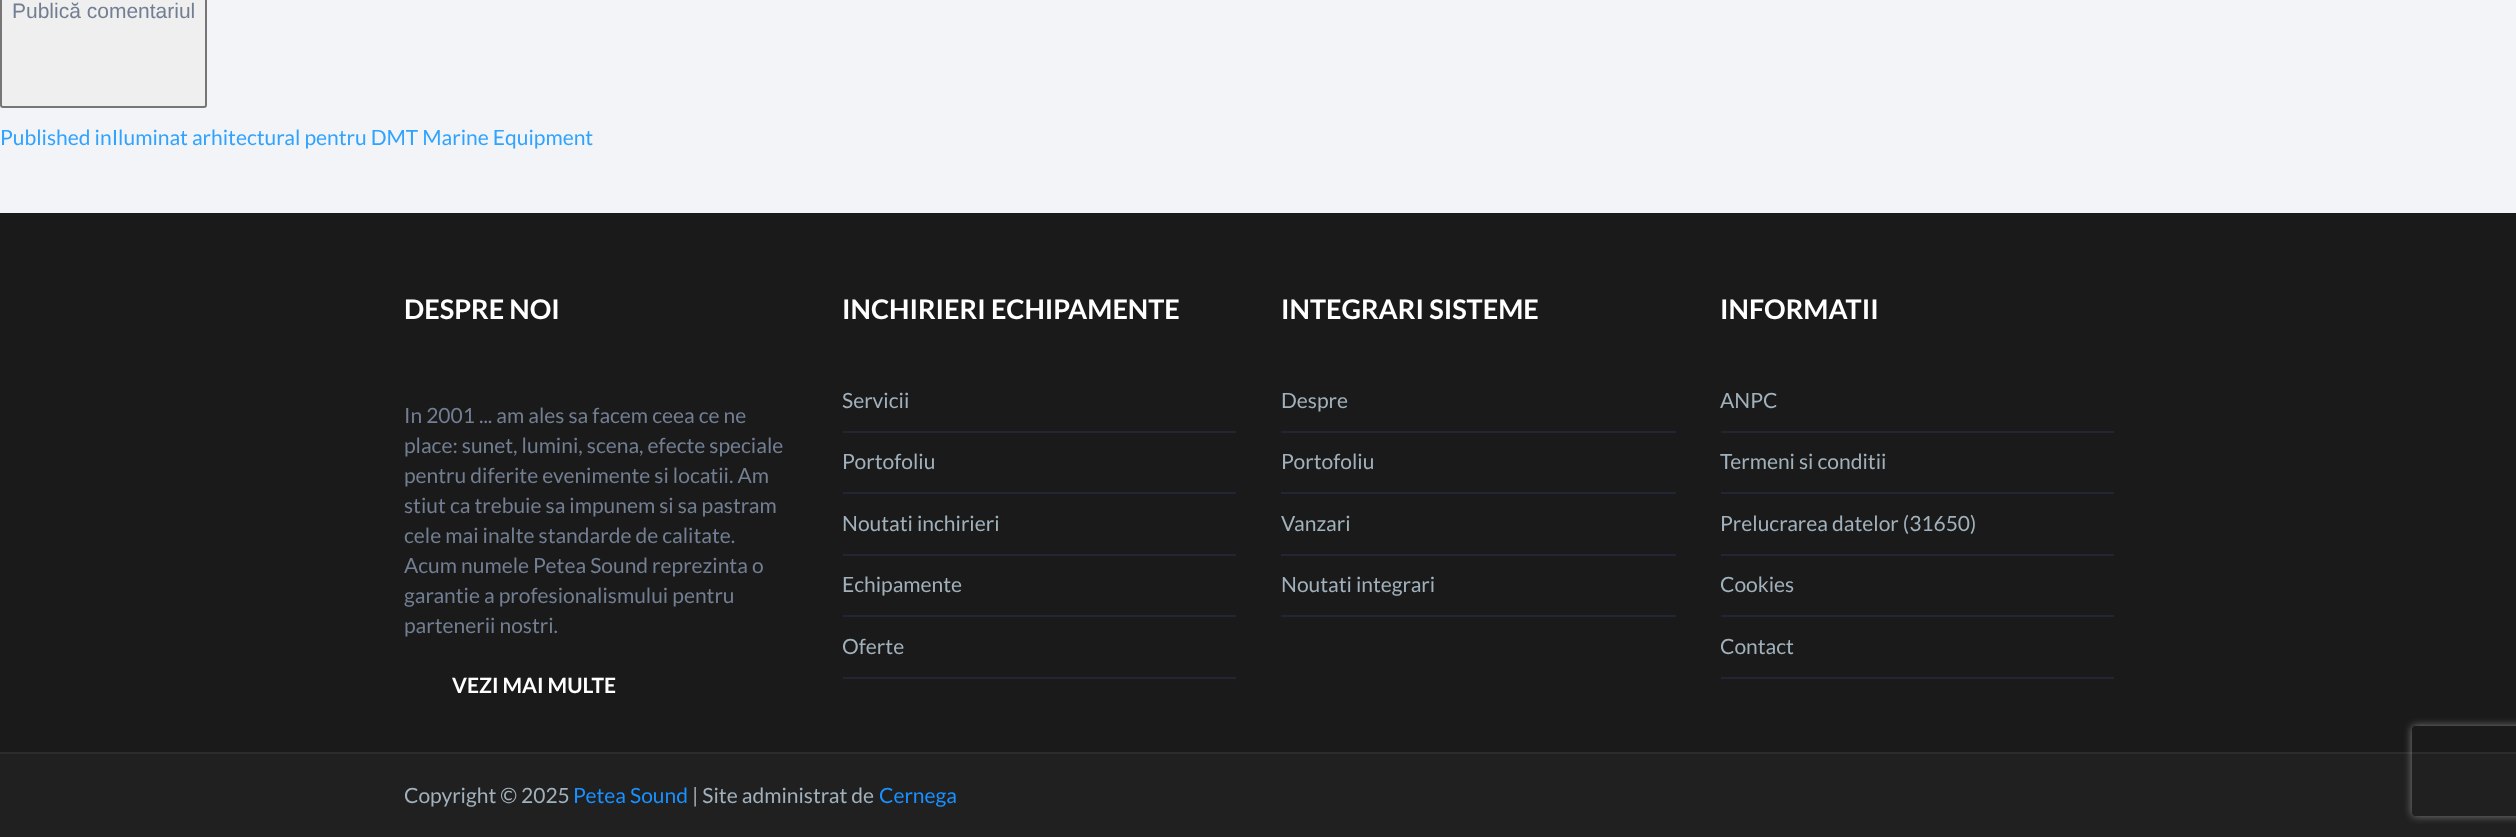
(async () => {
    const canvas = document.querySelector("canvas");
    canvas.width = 2516;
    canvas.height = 837;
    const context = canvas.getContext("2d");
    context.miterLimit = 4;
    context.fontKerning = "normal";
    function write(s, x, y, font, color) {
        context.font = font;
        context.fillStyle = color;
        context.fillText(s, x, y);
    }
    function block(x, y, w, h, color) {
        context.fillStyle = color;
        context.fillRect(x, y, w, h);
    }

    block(0, 0, 2516, 837, "rgb(242, 244, 248)");
    context.fillStyle = "rgb(239, 239, 239)";
    context.beginPath();
    context.roundRect(1, -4, 205, 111, 2);
    context.fill();
    context.strokeStyle = "rgb(118, 118, 118)";
    context.lineWidth = 2;
    context.stroke();
    write("Publică comentariul", 12, 18, "21px Liberation Sans", "rgb(114, 126, 146)");
    write("Published inIluminat arhitectural pentru DMT Marine Equipment", 0, 145, "21px Lato", "rgb(48, 163, 255)");
    block(0, 213, 2516, 539, "rgb(26, 26, 26)");
    write("DESPRE NOI", 404, 319, "bold 27px Lato", "rgb(255, 255, 255)");
    write("In 2001 ... am ales sa facem ceea ce ne", 404, 423, "21px Lato", "rgb(114, 126, 146)");
    write("place: sunet, lumini, scena, efecte speciale", 404, 453, "21px Lato", "rgb(114, 126, 146)");
    write("pentru diferite evenimente si locatii. Am", 404, 483, "21px Lato", "rgb(114, 126, 146)");
    write("stiut ca trebuie sa impunem si sa pastram", 404, 513, "21px Lato", "rgb(114, 126, 146)");
    write("cele mai inalte standarde de calitate.", 404, 543, "21px Lato", "rgb(114, 126, 146)");
    write("Acum numele Petea Sound reprezinta o", 404, 573, "21px Lato", "rgb(114, 126, 146)");
    write("garantie a profesionalismului pentru", 404, 603, "21px Lato", "rgb(114, 126, 146)");
    write("partenerii nostri.", 404, 633, "21px Lato", "rgb(114, 126, 146)");
    write("VEZI MAI MULTE", 452, 693, "bold 21px Lato", "rgb(255, 255, 255)");
    write("INCHIRIERI ECHIPAMENTE", 842, 319, "bold 27px Lato", "rgb(255, 255, 255)");
    block(843, 431, 393, 2, "rgb(34, 37, 51)");
    write("Servicii", 842, 408, "21px Lato", "rgb(161, 177, 188)");
    block(843, 492, 393, 2, "rgb(34, 37, 51)");
    write("Portofoliu", 842, 469, "21px Lato", "rgb(161, 177, 188)");
    block(843, 554, 393, 2, "rgb(34, 37, 51)");
    write("Noutati inchirieri", 842, 531, "21px Lato", "rgb(161, 177, 188)");
    block(843, 615, 393, 2, "rgb(34, 37, 51)");
    write("Echipamente", 842, 592, "21px Lato", "rgb(161, 177, 188)");
    block(843, 677, 393, 2, "rgb(34, 37, 51)");
    write("Oferte", 842, 654, "21px Lato", "rgb(161, 177, 188)");
    write("INTEGRARI SISTEME", 1281, 319, "bold 27px Lato", "rgb(255, 255, 255)");
    block(1281, 431, 395, 2, "rgb(34, 37, 51)");
    write("Despre", 1281, 408, "21px Lato", "rgb(161, 177, 188)");
    block(1281, 492, 395, 2, "rgb(34, 37, 51)");
    write("Portofoliu", 1281, 469, "21px Lato", "rgb(161, 177, 188)");
    block(1281, 554, 395, 2, "rgb(34, 37, 51)");
    write("Vanzari", 1281, 531, "21px Lato", "rgb(161, 177, 188)");
    block(1281, 615, 395, 2, "rgb(34, 37, 51)");
    write("Noutati integrari", 1281, 592, "21px Lato", "rgb(161, 177, 188)");
    write("INFORMATII", 1720, 319, "bold 27px Lato", "rgb(255, 255, 255)");
    block(1721, 431, 393, 2, "rgb(34, 37, 51)");
    write("ANPC", 1720, 408, "21px Lato", "rgb(161, 177, 188)");
    block(1721, 492, 393, 2, "rgb(34, 37, 51)");
    write("Termeni si conditii", 1720, 469, "21px Lato", "rgb(161, 177, 188)");
    block(1721, 554, 393, 2, "rgb(34, 37, 51)");
    write("Prelucrarea datelor (31650)", 1720, 531, "21px Lato", "rgb(161, 177, 188)");
    block(1721, 615, 393, 2, "rgb(34, 37, 51)");
    write("Cookies", 1720, 592, "21px Lato", "rgb(161, 177, 188)");
    block(1721, 677, 393, 2, "rgb(34, 37, 51)");
    write("Contact", 1720, 654, "21px Lato", "rgb(161, 177, 188)");
    block(0, 754, 2516, 83, "rgb(32, 32, 32)");
    block(0, 752, 2516, 2, "rgb(44, 44, 44)");
    write("Copyright © 2025", 404, 803, "21px Lato", "rgb(161, 177, 188)");
    write("Petea Sound", 573, 803, "21px Lato", "rgb(25, 144, 255)");
    write("| Site administrat de", 692, 803, "21px Lato", "rgb(161, 177, 188)");
    write("Cernega", 879, 803, "21px Lato", "rgb(25, 144, 255)");
    context.save();
    context.beginPath();
    context.moveTo(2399, 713);
    context.lineTo(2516, 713);
    context.lineTo(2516, 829);
    context.lineTo(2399, 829);
    context.closePath();
    context.moveTo(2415, 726);
    context.lineTo(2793, 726);
    context.bezierCurveTo(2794.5, 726, 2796, 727.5, 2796, 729);
    context.lineTo(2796, 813);
    context.bezierCurveTo(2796, 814.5, 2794.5, 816, 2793, 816);
    context.lineTo(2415, 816);
    context.bezierCurveTo(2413.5, 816, 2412, 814.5, 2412, 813);
    context.lineTo(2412, 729);
    context.bezierCurveTo(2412, 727.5, 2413.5, 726, 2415, 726);
    context.closePath();
    context.clip("evenodd");
    context.fillStyle = "rgb(128, 128, 128)";
    context.filter = "blur(4px)";
    context.beginPath();
    context.roundRect(2412, 726, 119, 90, 3);
    context.fill();
    context.filter = "none";
    context.restore();
})();
